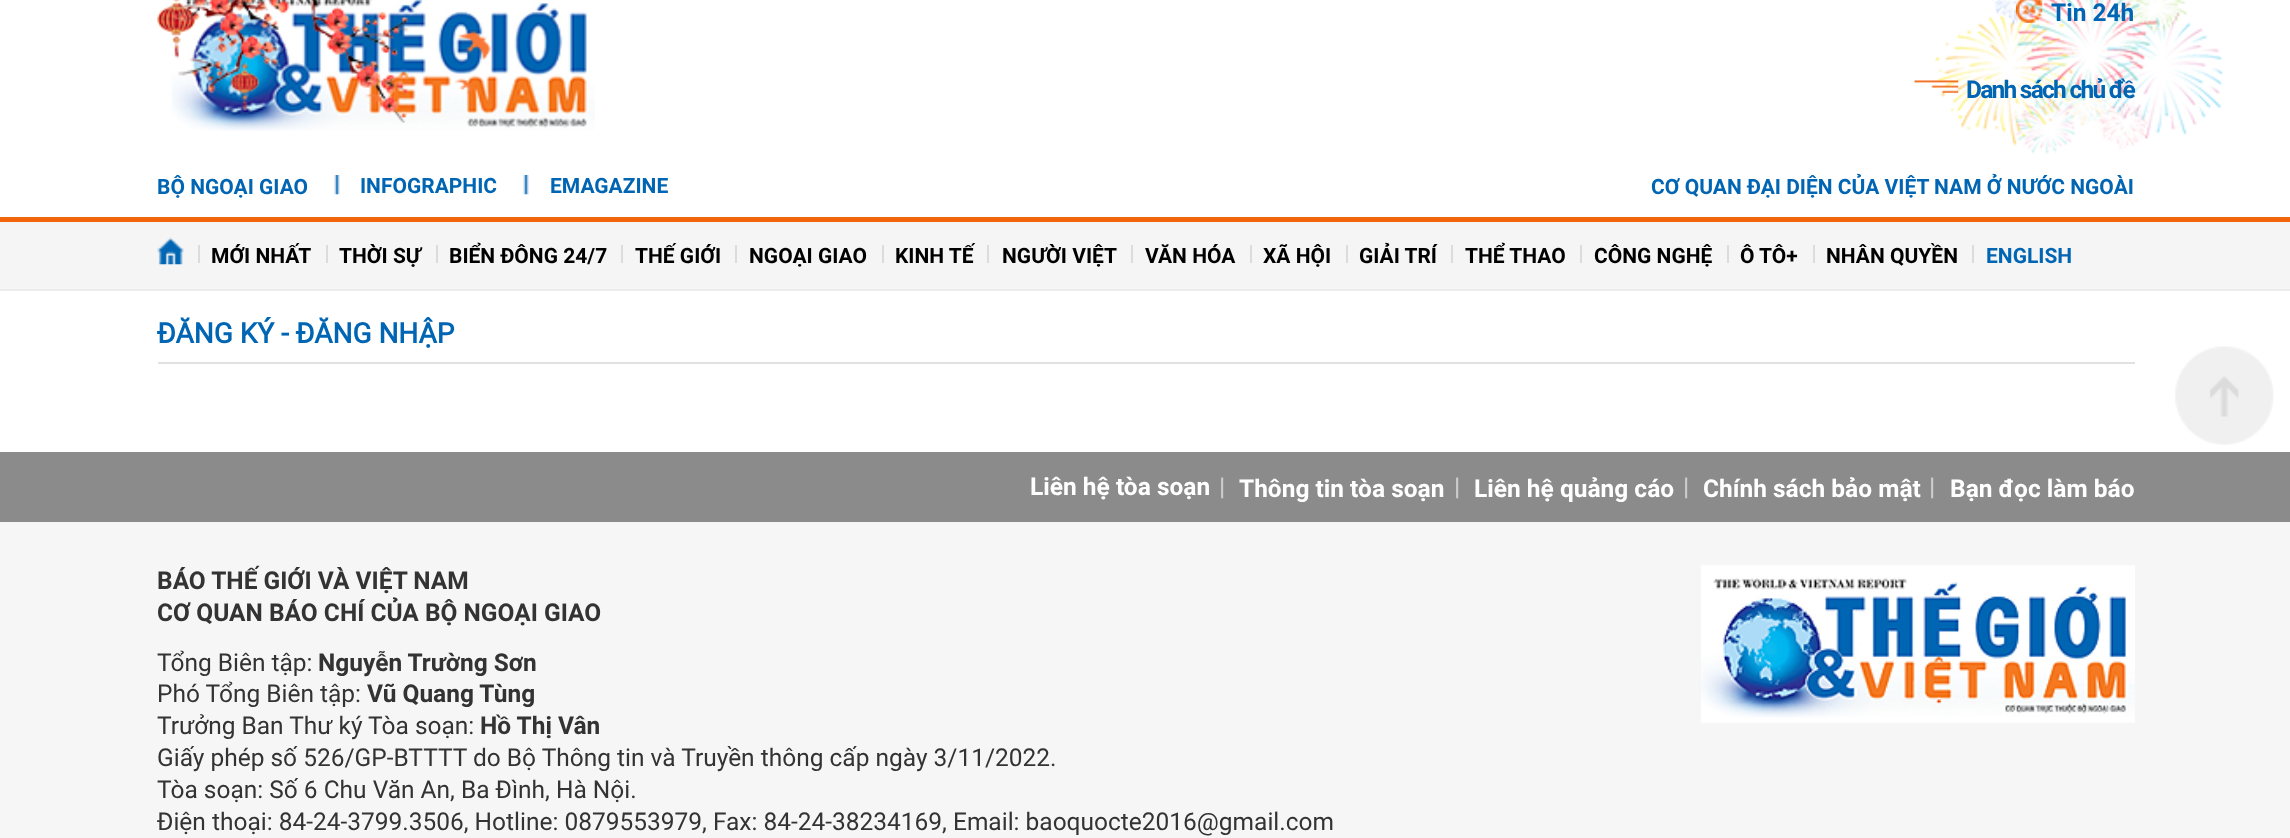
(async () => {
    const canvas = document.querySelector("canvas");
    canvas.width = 2290;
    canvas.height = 838;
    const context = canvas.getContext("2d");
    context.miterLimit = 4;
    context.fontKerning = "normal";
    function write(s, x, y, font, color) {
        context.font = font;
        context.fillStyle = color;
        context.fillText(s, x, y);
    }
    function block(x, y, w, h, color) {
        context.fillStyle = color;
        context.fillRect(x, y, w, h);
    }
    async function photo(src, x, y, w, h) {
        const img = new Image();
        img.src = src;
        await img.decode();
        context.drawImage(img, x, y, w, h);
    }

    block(0, 0, 2290, 838, "rgb(255, 255, 255)");
    await photo("media/1.png", 157, 0, 438, 131);
    await photo("media/2.png", 1933, 0, 290, 154);
    await photo("media/3.png", 2016, 0, 27, 23);
    write("Tin 24h", 2051, 21, "bold 24.5px Roboto", "rgb(0, 101, 179)");
    await photo("media/4.png", 1914, 80, 45, 13);
    context.letterSpacing = "-1.75px";
    write("Danh sách chủ đề", 1966, 98, "bold 24.5px Roboto", "rgb(0, 101, 179)");
    context.letterSpacing = "0px";
    write("BỘ NGOẠI GIAO", 157, 194, "bold 21px Roboto", "rgb(0, 101, 179)");
    await photo("media/5.png", 334, 175, 6, 20);
    write("INFOGRAPHIC", 360, 193, "bold 21px Roboto", "rgb(0, 101, 179)");
    await photo("media/5.png", 523, 175, 6, 20);
    write("EMAGAZINE", 550, 193, "bold 21px Roboto", "rgb(0, 101, 179)");
    write("CƠ QUAN ĐẠI DIỆN CỦA VIỆT NAM Ở NƯỚC NGOÀI", 1651, 194, "bold 21px Roboto", "rgb(0, 101, 179)");
    block(0, 222, 2290, 67, "rgb(245, 245, 245)");
    block(0, 217, 2290, 5, "rgb(243, 101, 13)");
    block(0, 289, 2290, 2, "rgb(236, 236, 236)");
    await photo("media/6.png", 157, 237, 27, 28);
    block(198, 245, 2, 18, "rgb(220, 220, 220)");
    write("MỚI NHẤT", 211, 263, "bold 21px Roboto", "rgb(0, 0, 0)");
    block(326, 245, 2, 18, "rgb(220, 220, 220)");
    write("THỜI SỰ", 339, 263, "bold 21px Roboto", "rgb(0, 0, 0)");
    block(436, 245, 2, 18, "rgb(220, 220, 220)");
    write("BIỂN ĐÔNG 24/7", 449, 263, "bold 21px Roboto", "rgb(0, 0, 0)");
    block(621, 245, 2, 18, "rgb(220, 220, 220)");
    write("THẾ GIỚI", 635, 263, "bold 21px Roboto", "rgb(0, 0, 0)");
    block(735, 245, 2, 18, "rgb(220, 220, 220)");
    write("NGOẠI GIAO", 749, 263, "bold 21px Roboto", "rgb(0, 0, 0)");
    block(882, 245, 2, 18, "rgb(220, 220, 220)");
    write("KINH TẾ", 895, 263, "bold 21px Roboto", "rgb(0, 0, 0)");
    block(987, 245, 2, 18, "rgb(220, 220, 220)");
    write("NGƯỜI VIỆT", 1002, 263, "bold 21px Roboto", "rgb(0, 0, 0)");
    block(1131, 245, 2, 18, "rgb(220, 220, 220)");
    write("VĂN HÓA", 1145, 263, "bold 21px Roboto", "rgb(0, 0, 0)");
    block(1250, 245, 2, 18, "rgb(220, 220, 220)");
    write("XÃ HỘI", 1263, 263, "bold 21px Roboto", "rgb(0, 0, 0)");
    block(1346, 245, 2, 18, "rgb(220, 220, 220)");
    write("GIẢI TRÍ", 1359, 263, "bold 21px Roboto", "rgb(0, 0, 0)");
    block(1451, 245, 2, 18, "rgb(220, 220, 220)");
    write("THỂ THAO", 1465, 263, "bold 21px Roboto", "rgb(0, 0, 0)");
    block(1580, 245, 2, 18, "rgb(220, 220, 220)");
    write("CÔNG NGHỆ", 1594, 263, "bold 21px Roboto", "rgb(0, 0, 0)");
    block(1727, 245, 2, 18, "rgb(220, 220, 220)");
    write("Ô TÔ+", 1740, 263, "bold 21px Roboto", "rgb(0, 0, 0)");
    block(1813, 245, 2, 18, "rgb(220, 220, 220)");
    write("NHÂN QUYỀN", 1826, 263, "bold 21px Roboto", "rgb(0, 0, 0)");
    block(1972, 245, 2, 18, "rgb(220, 220, 220)");
    write("ENGLISH", 1986, 263, "bold 21px Roboto", "rgb(0, 101, 179)");
    block(158, 362, 1977, 2, "rgb(225, 225, 225)");
    write("ĐĂNG KÝ - ĐĂNG NHẬP", 157, 343, "bold 28px 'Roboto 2'", "rgb(0, 101, 179)");
    block(0, 452, 2290, 70, "rgb(139, 139, 139)");
    write("Liên hệ tòa soạn", 1030, 495, "bold 24.5px Roboto", "rgb(255, 255, 255)");
    write("|", 1219, 495, "bold 24.5px Roboto", "rgb(204, 204, 204)");
    write("Thông tin tòa soạn", 1239, 497, "bold 24.5px Roboto", "rgb(255, 255, 255)");
    write("|", 1454, 495, "bold 24.5px Roboto", "rgb(204, 204, 204)");
    write("Liên hệ quảng cáo", 1474, 497, "bold 24.5px Roboto", "rgb(255, 255, 255)");
    write("|", 1683, 495, "bold 24.5px Roboto", "rgb(204, 204, 204)");
    write("Chính sách bảo mật", 1703, 497, "bold 24.5px Roboto", "rgb(255, 255, 255)");
    write("|", 1929, 495, "bold 24.5px Roboto", "rgb(204, 204, 204)");
    write("Bạn đọc làm báo", 1950, 497, "bold 24.5px Roboto", "rgb(255, 255, 255)");
    block(0, 522, 2290, 316, "rgb(246, 246, 246)");
    write("BÁO THẾ GIỚI VÀ VIỆT NAM", 157, 589, "bold 24.5px Roboto", "rgb(51, 51, 51)");
    write("CƠ QUAN BÁO CHÍ CỦA BỘ NGOẠI GIAO", 157, 621, "bold 24.5px Roboto", "rgb(51, 51, 51)");
    write("Tổng Biên tập:", 157, 671, "24.5px Roboto", "rgb(51, 51, 51)");
    write("Nguyễn Trường Sơn", 318, 671, "bold 24.5px Roboto", "rgb(51, 51, 51)");
    write("Phó Tổng Biên tập:", 157, 702, "24.5px Roboto", "rgb(51, 51, 51)");
    write("Vũ Quang Tùng", 367, 702, "bold 24.5px Roboto", "rgb(51, 51, 51)");
    write("Trưởng Ban Thư ký Tòa soạn:", 157, 734, "24.5px Roboto", "rgb(51, 51, 51)");
    write("Hồ Thị Vân", 480, 734, "bold 24.5px Roboto", "rgb(51, 51, 51)");
    write("Giấy phép số 526/GP-BTTTT do Bộ Thông tin và Truyền thông cấp ngày 3/11/2022.", 157, 766, "24.5px Roboto", "rgb(51, 51, 51)");
    write("Tòa soạn: Số 6 Chu Văn An, Ba Đình, Hà Nội.", 157, 798, "24.5px Roboto", "rgb(51, 51, 51)");
    write("Điện thoại: 84-24-3799.3506, Hotline: 0879553979, Fax: 84-24-38234169, Email: baoquocte2016@gmail.com", 157, 830, "24.5px Roboto", "rgb(51, 51, 51)");
    await photo("media/7.png", 1701, 565, 434, 158);
    await photo("media/8.png", 2175, 346, 99, 99);
})();
